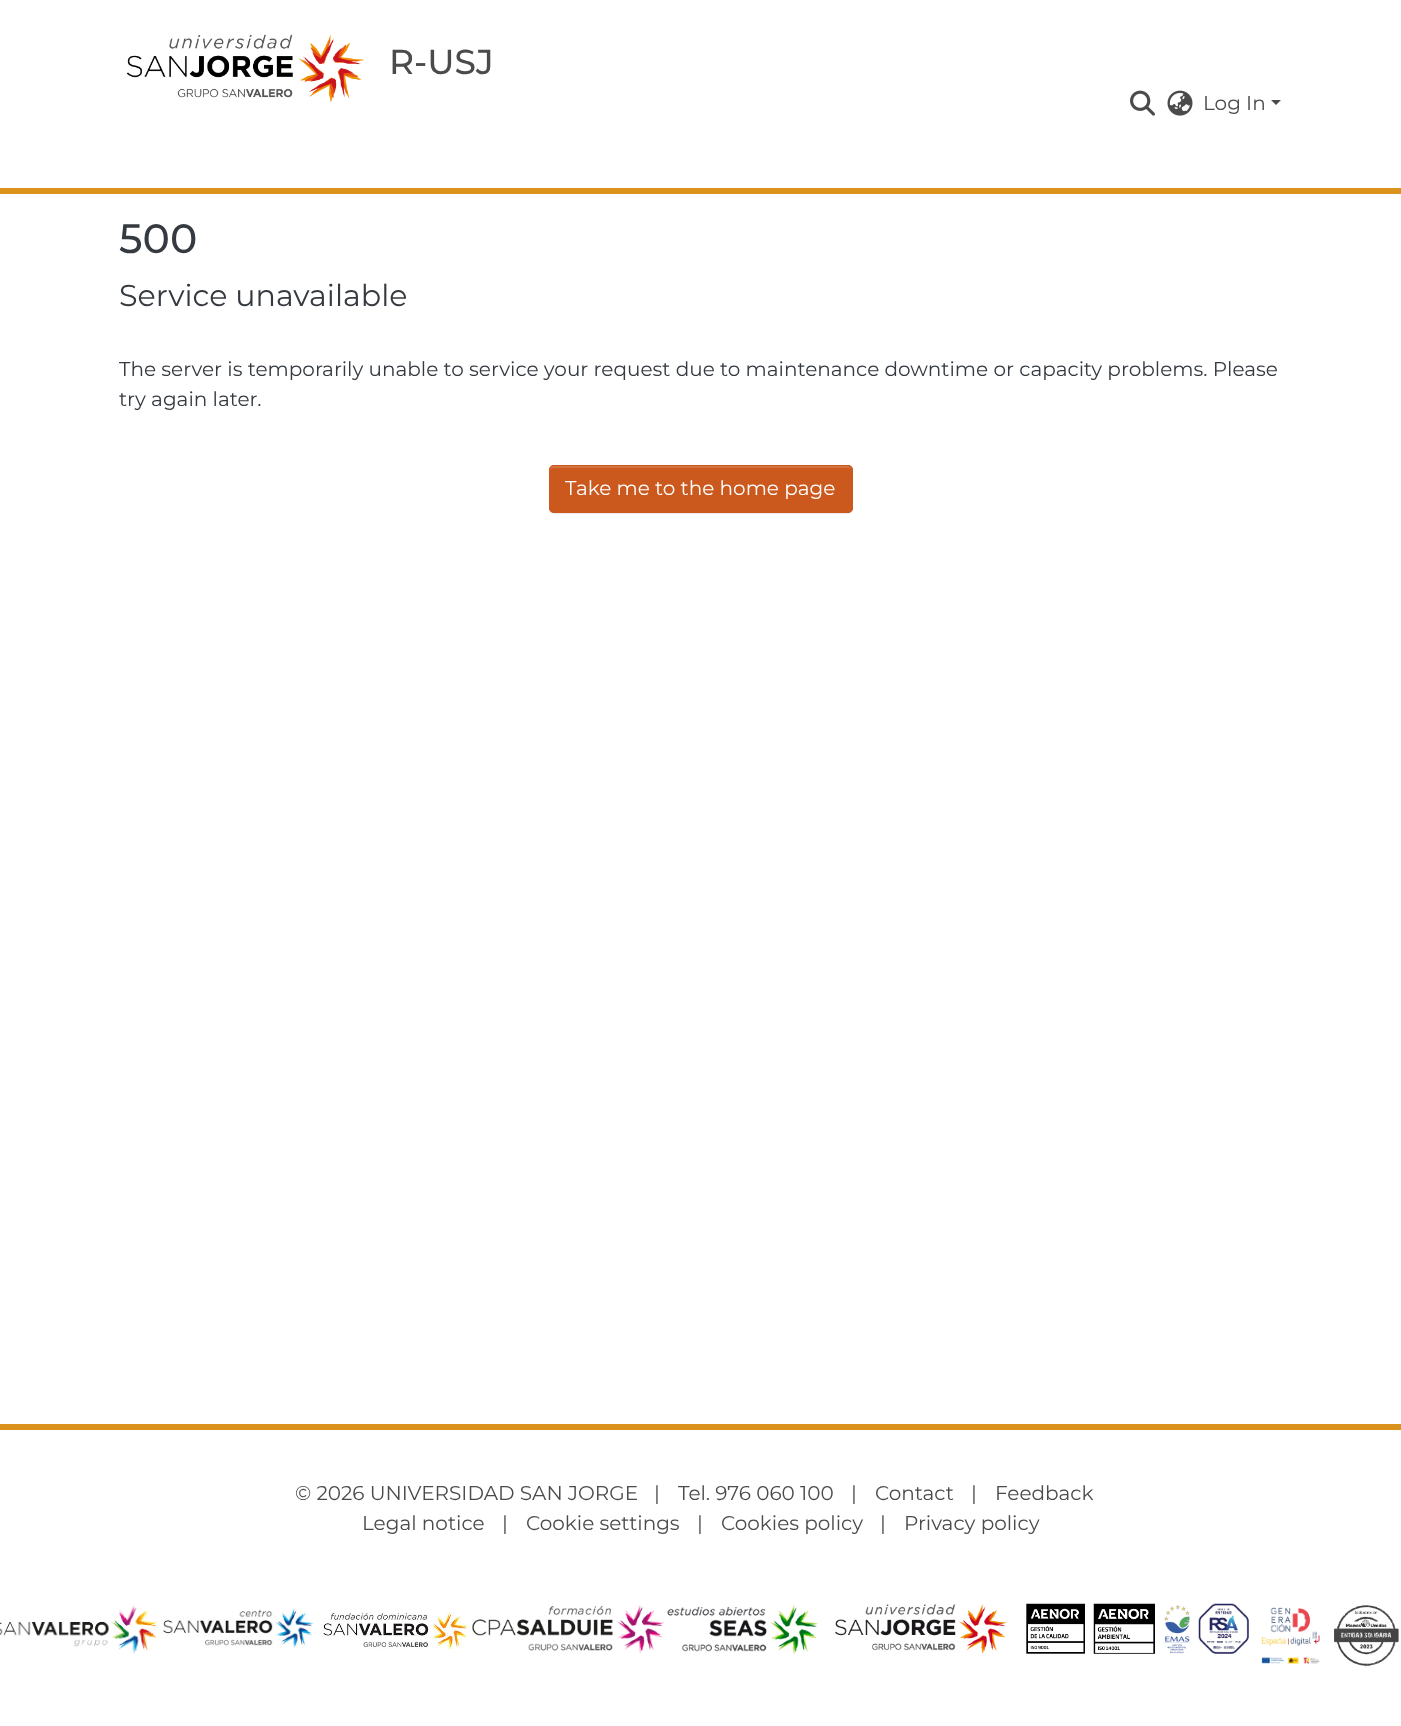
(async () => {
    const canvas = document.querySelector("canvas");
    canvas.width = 1401;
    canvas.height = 1726;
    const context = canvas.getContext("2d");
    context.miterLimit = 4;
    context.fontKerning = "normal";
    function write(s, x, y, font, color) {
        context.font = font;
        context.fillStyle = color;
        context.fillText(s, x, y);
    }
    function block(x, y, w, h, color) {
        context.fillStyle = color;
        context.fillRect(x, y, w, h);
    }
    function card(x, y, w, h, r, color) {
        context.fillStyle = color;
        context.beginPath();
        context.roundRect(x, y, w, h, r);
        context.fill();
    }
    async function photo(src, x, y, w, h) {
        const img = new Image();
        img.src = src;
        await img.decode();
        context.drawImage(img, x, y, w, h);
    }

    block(0, 0, 1401, 1726, "rgb(255, 255, 255)");
    block(0, 188, 1401, 6, "rgb(219, 146, 28)");
    await photo("media/1.png", 126, 34, 239, 69);
    write("R-USJ", 389, 74, "500 34.5px Montserrat", "rgb(75, 75, 75)");
    await photo("media/2.png", 1130, 90, 25, 26);
    await photo("media/3.png", 1167, 90, 26, 26);
    write("Log In", 1203, 110, "20px Montserrat", "rgb(75, 75, 75)");
    context.beginPath();
    context.moveTo(1271, 100);
    context.lineTo(1281, 100);
    context.lineTo(1276, 105);
    context.closePath();
    context.fill();
    write("500", 119, 253, "500 41px Montserrat", "rgb(52, 58, 64)");
    write("Service unavailable", 119, 306, "30.1px Montserrat", "rgb(52, 58, 64)");
    write("The server is temporarily unable to service your request due to maintenance downtime or capacity problems. Please", 119, 376, "20px Montserrat", "rgb(52, 58, 64)");
    write("try again later.", 119, 406, "20px Montserrat", "rgb(52, 58, 64)");
    context.fillStyle = "rgba(0, 0, 0, 0.07)";
    context.filter = "blur(0.5px)";
    context.beginPath();
    context.roundRect(549, 466, 304, 48, 5);
    context.fill();
    context.filter = "none";
    card(549, 465, 304, 48, 5, "rgb(203, 89, 30)");
    context.fillStyle = "rgb(211, 114, 64)";
    context.beginPath();
    context.moveTo(554, 468);
    context.lineTo(848, 468);
    context.bezierCurveTo(850, 468, 851, 469, 851, 471);
    context.bezierCurveTo(851, 468, 850, 466, 847, 466);
    context.lineTo(554, 466);
    context.bezierCurveTo(551, 466, 550, 468, 550, 471);
    context.bezierCurveTo(550, 469, 552, 468, 554, 468);
    context.closePath();
    context.fill();
    context.beginPath();
    context.roundRect(549.5, 465.5, 303, 47, 4.5);
    context.strokeStyle = "rgb(203, 89, 30)";
    context.stroke();
    write("Take me to the home page", 565, 495, "20px Montserrat", "rgb(255, 255, 255)");
    block(0, 1424, 1401, 6, "rgb(219, 146, 28)");
    write("© 2026 UNIVERSIDAD SAN JORGE", 295, 1500, "20px Montserrat", "rgb(75, 75, 75)");
    write("|", 654, 1500, "20px Montserrat", "rgb(75, 75, 75)");
    write("Tel. 976 060 100", 678, 1500, "20px Montserrat", "rgb(75, 75, 75)");
    write("|", 851, 1500, "20px Montserrat", "rgb(75, 75, 75)");
    write("Contact", 875, 1500, "20px Montserrat", "rgb(75, 75, 75)");
    write("|", 971, 1500, "20px Montserrat", "rgb(75, 75, 75)");
    write("Feedback", 995, 1500, "20px Montserrat", "rgb(75, 75, 75)");
    write("Legal notice", 362, 1530, "20px Montserrat", "rgb(75, 75, 75)");
    write("|", 502, 1530, "20px Montserrat", "rgb(75, 75, 75)");
    write("Cookie settings", 526, 1530, "20px Montserrat", "rgb(75, 75, 75)");
    write("|", 697, 1530, "20px Montserrat", "rgb(75, 75, 75)");
    write("Cookies policy", 721, 1530, "20px Montserrat", "rgb(75, 75, 75)");
    write("|", 880, 1530, "20px Montserrat", "rgb(75, 75, 75)");
    write("Privacy policy", 904, 1530, "20px Montserrat", "rgb(75, 75, 75)");
    await photo("media/4.png", 0, 1604, 159, 50);
    await photo("media/5.png", 163, 1608, 151, 40);
    await photo("media/6.png", 322, 1612, 148, 37);
    await photo("media/7.png", 472, 1604, 193, 50);
    await photo("media/8.png", 667, 1604, 151, 50);
    await photo("media/9.png", 835, 1603, 173, 51);
    await photo("media/10.png", 1026, 1603, 59, 51);
    await photo("media/11.png", 1093, 1603, 62, 51);
    await photo("media/12.png", 1163, 1605, 27, 49);
    await photo("media/13.png", 1198, 1603, 51, 51);
    await photo("media/14.png", 1261, 1607, 59, 57);
    await photo("media/15.png", 1334, 1605, 65, 62);
})();
